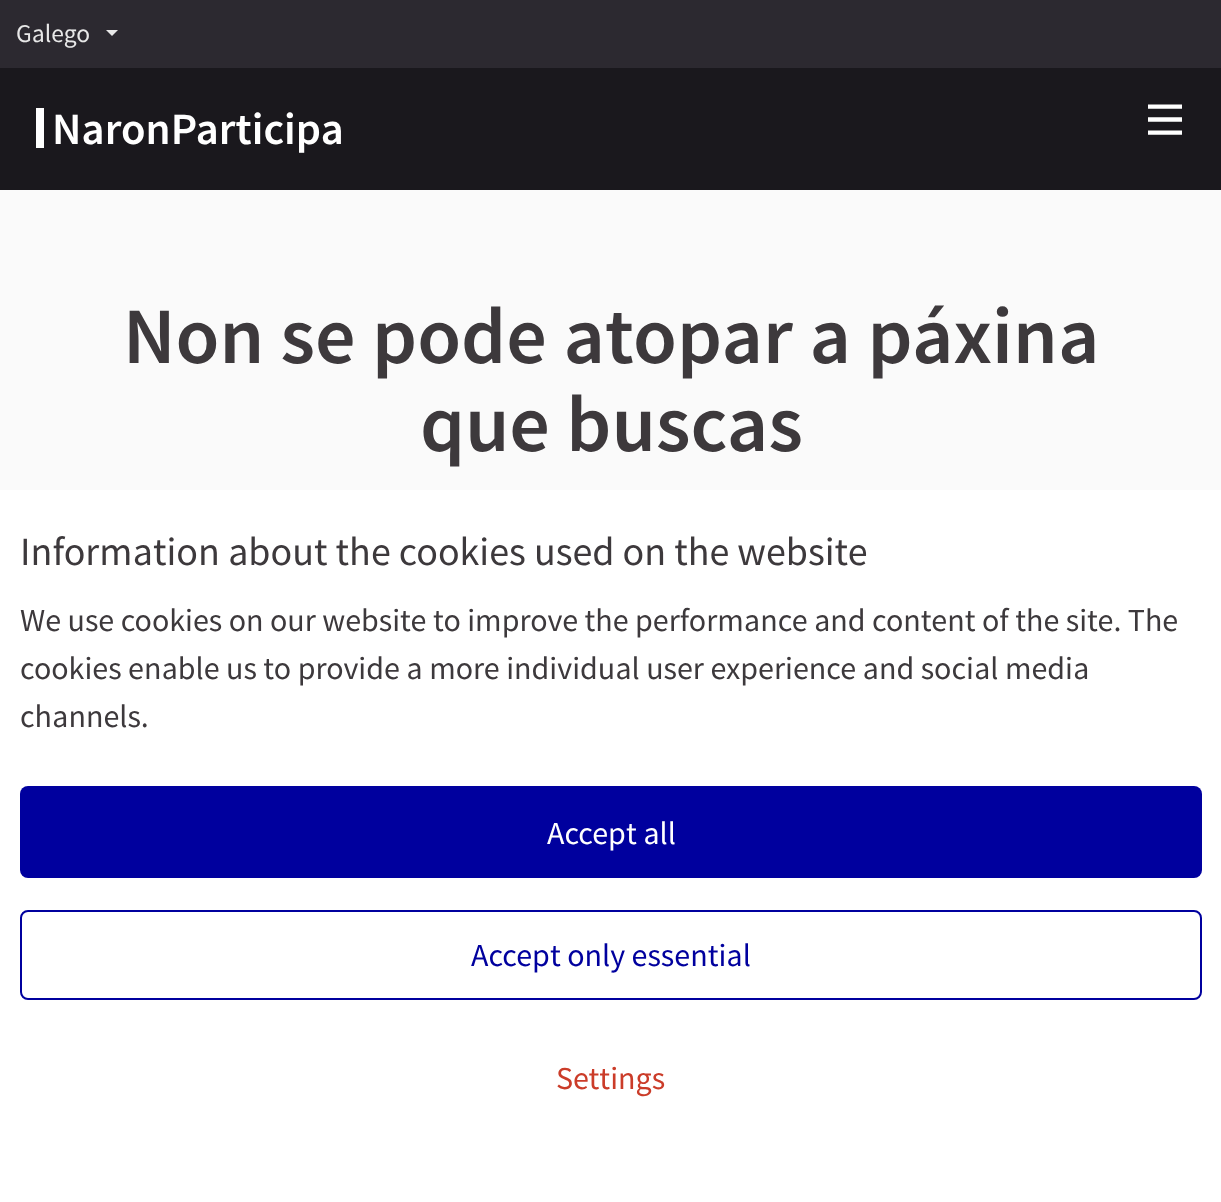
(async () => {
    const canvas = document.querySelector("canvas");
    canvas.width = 1221;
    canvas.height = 1202;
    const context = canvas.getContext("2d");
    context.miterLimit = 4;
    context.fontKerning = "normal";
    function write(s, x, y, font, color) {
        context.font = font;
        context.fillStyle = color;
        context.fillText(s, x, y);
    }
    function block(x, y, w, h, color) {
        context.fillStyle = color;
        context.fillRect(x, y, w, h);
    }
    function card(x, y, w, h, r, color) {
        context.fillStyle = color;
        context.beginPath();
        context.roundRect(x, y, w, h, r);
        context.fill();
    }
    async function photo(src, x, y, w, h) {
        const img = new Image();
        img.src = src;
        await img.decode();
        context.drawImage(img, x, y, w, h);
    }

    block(0, 0, 1221, 1202, "rgb(250, 250, 250)");
    block(0, 68, 1221, 122, "rgb(26, 24, 29)");
    block(0, 0, 1221, 68, "rgb(44, 41, 48)");
    write("Galego", 16, 42, "25.5px Source Sans Pro", "rgb(232, 232, 232)");
    context.beginPath();
    context.moveTo(106, 30);
    context.lineTo(118, 30);
    context.lineTo(112, 36);
    context.closePath();
    context.fill();
    block(36, 108, 8, 40, "rgb(255, 255, 255)");
    write("NaronParticipa", 52, 144, "600 44.75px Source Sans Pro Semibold", "rgb(255, 255, 255)");
    await photo("media/1.png", 1148, 104, 34, 31);
    write("Non se pode atopar a páxina", 123, 363, "600 80px Source Sans Pro Semibold", "rgb(61, 57, 60)");
    write("que buscas", 420, 451, "600 80px Source Sans Pro Semibold", "rgb(61, 57, 60)");
    block(0, 490, 1221, 712, "rgb(255, 255, 255)");
    write("Information about the cookies used on the website", 20, 565, "40px Source Sans Pro", "rgb(61, 57, 60)");
    write("We use cookies on our website to improve the performance and content of the site. The", 20, 631, "32px Source Sans Pro", "rgb(61, 57, 60)");
    write("cookies enable us to provide a more individual user experience and social media", 20, 679, "32px Source Sans Pro", "rgb(61, 57, 60)");
    write("channels.", 20, 727, "32px Source Sans Pro", "rgb(61, 57, 60)");
    card(20, 786, 1182, 92, 8, "rgb(0, 0, 158)");
    write("Accept all", 547, 844, "32px Source Sans Pro", "rgb(255, 255, 255)");
    context.beginPath();
    context.roundRect(21, 911, 1180, 88, 7);
    context.strokeStyle = "rgb(0, 0, 158)";
    context.lineWidth = 2;
    context.stroke();
    write("Accept only essential", 471, 966, "32px Source Sans Pro", "rgb(0, 0, 158)");
    write("Settings", 556, 1089, "32px Source Sans Pro", "rgb(203, 60, 41)");
})();
